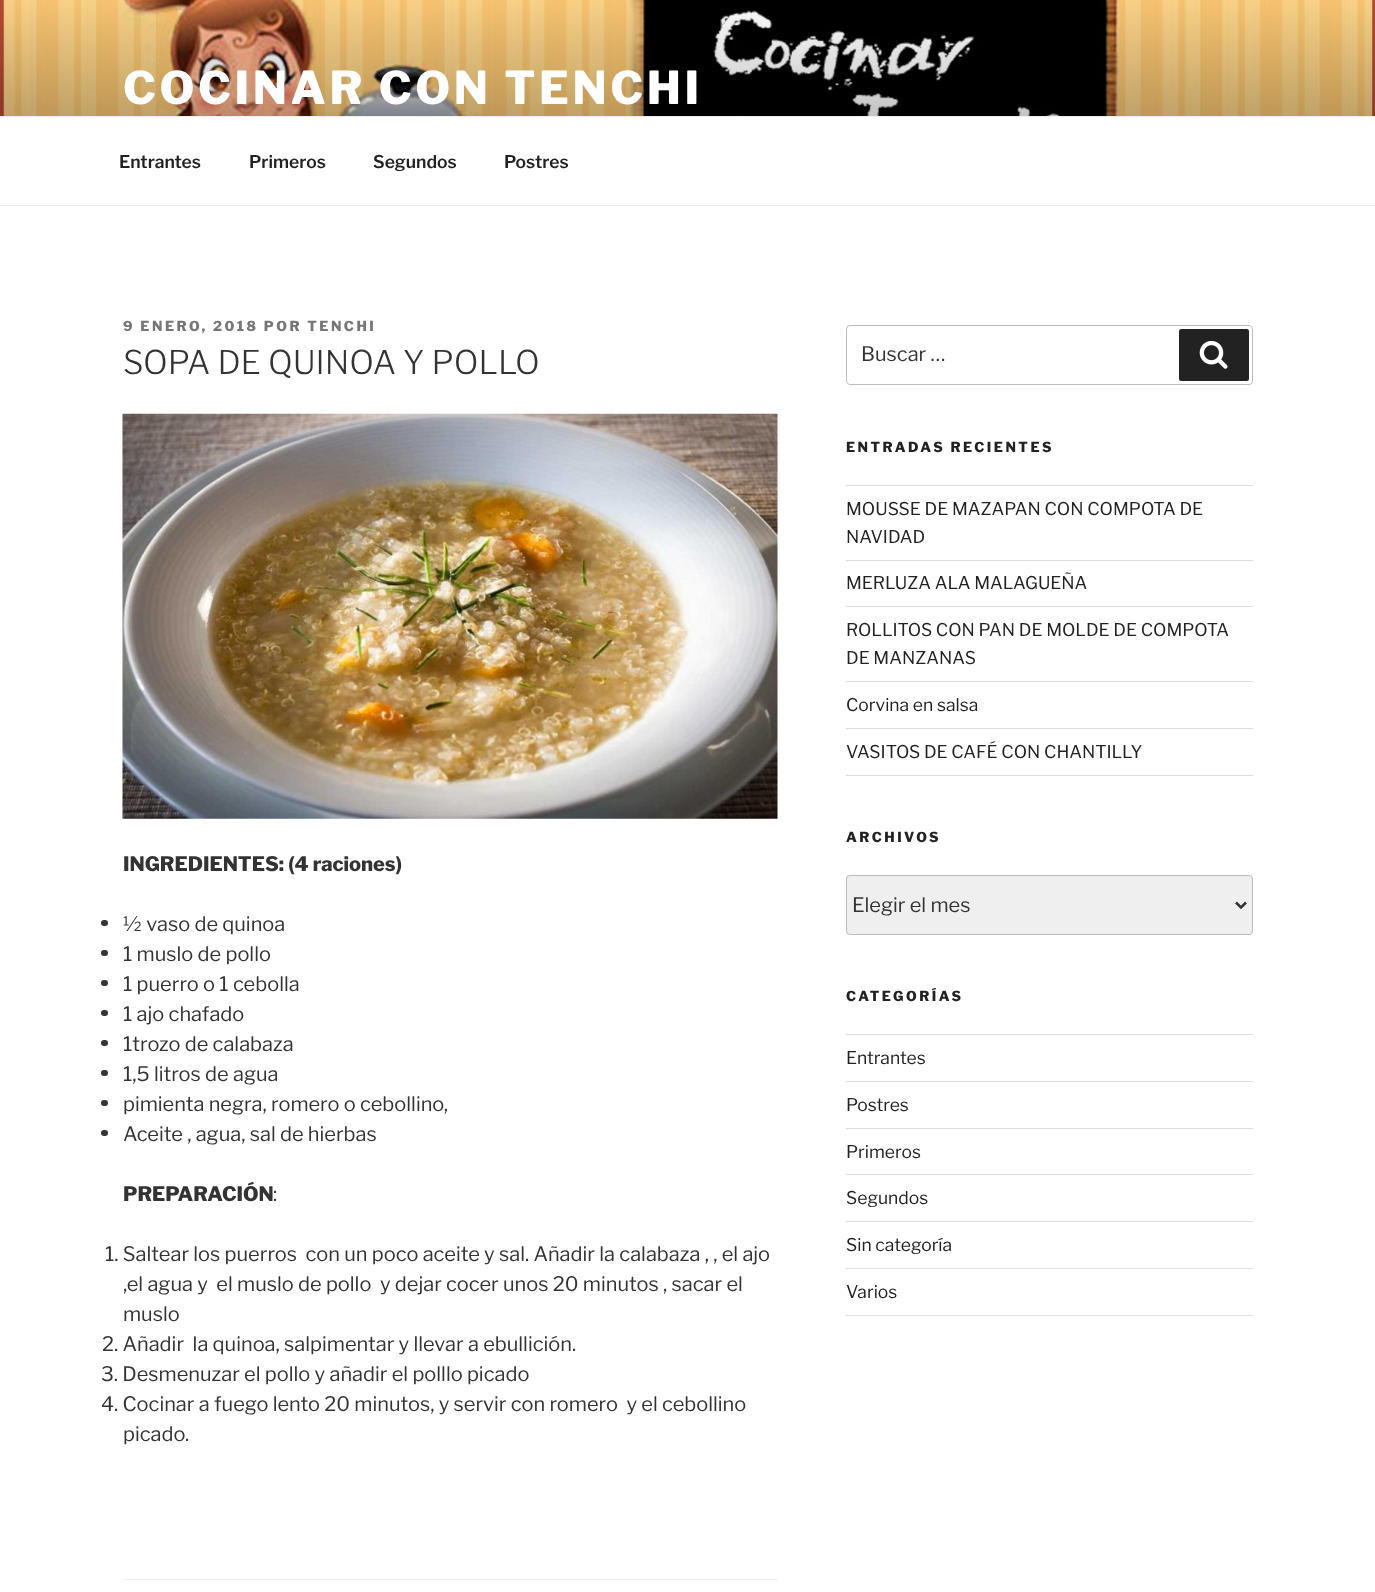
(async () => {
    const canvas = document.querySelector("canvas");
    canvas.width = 1375;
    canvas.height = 1592;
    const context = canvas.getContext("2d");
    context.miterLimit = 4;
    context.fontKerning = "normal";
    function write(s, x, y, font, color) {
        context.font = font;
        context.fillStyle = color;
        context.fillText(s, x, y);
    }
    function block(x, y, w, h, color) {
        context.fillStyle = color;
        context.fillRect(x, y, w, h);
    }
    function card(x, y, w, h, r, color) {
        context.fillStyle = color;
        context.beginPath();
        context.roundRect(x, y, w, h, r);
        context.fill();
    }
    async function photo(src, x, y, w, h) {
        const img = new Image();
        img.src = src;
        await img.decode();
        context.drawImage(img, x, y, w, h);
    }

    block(0, 0, 1375, 1592, "rgb(255, 255, 255)");
    await photo("media/1.png", 0, 0, 1375, 116);
    context.letterSpacing = "3.6px";
    write("COCINAR CON TENCHI", 123, 104, "100 45px Libre Franklin", "rgb(255, 255, 255)");
    block(0, 116, 1375, 1, "rgb(238, 238, 238)");
    block(0, 205, 1375, 1, "rgb(238, 238, 238)");
    context.letterSpacing = "0px";
    write("Entrantes", 119, 168, "100 17.5px 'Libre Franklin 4'", "rgb(34, 34, 34)");
    write("Primeros", 249, 168, "100 17.5px 'Libre Franklin 4'", "rgb(34, 34, 34)");
    write("Segundos", 373, 168, "100 17.5px 'Libre Franklin 4'", "rgb(34, 34, 34)");
    write("Postres", 504, 168, "100 17.5px 'Libre Franklin 4'", "rgb(34, 34, 34)");
    context.letterSpacing = "2.5px";
    write("9 ENERO, 2018 POR TENCHI", 123, 331, "100 13.75px Libre Franklin", "rgb(118, 118, 118)");
    context.letterSpacing = "0px";
    write("SOPA DE QUINOA Y POLLO", 123, 374, "100 32.5px 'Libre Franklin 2'", "rgb(51, 51, 51)");
    await photo("media/2.png", 122, 413, 656, 406);
    write("INGREDIENTES: (4 raciones)", 123, 871, "100 20px Libre Franklin", "rgb(51, 51, 51)");
    card(101, 920, 7, 6, 3, "rgb(51, 51, 51)");
    write("½ vaso de quinoa", 123, 931, "100 20px 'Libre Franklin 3'", "rgb(51, 51, 51)");
    card(101, 950, 7, 6, 3, "rgb(51, 51, 51)");
    write("1 muslo de pollo", 123, 961, "100 20px 'Libre Franklin 3'", "rgb(51, 51, 51)");
    card(101, 980, 7, 6, 3, "rgb(51, 51, 51)");
    write("1 puerro o 1 cebolla", 123, 991, "100 20px 'Libre Franklin 3'", "rgb(51, 51, 51)");
    card(101, 1010, 7, 6, 3, "rgb(51, 51, 51)");
    write("1 ajo chafado", 123, 1021, "100 20px 'Libre Franklin 3'", "rgb(51, 51, 51)");
    card(101, 1040, 7, 6, 3, "rgb(51, 51, 51)");
    write("1trozo de calabaza", 123, 1051, "100 20px 'Libre Franklin 3'", "rgb(51, 51, 51)");
    card(101, 1070, 7, 6, 3, "rgb(51, 51, 51)");
    write("1,5 litros de agua", 123, 1081, "100 20px 'Libre Franklin 3'", "rgb(51, 51, 51)");
    card(101, 1100, 7, 6, 3, "rgb(51, 51, 51)");
    write("pimienta negra, romero o cebollino,", 123, 1111, "100 20px 'Libre Franklin 3'", "rgb(51, 51, 51)");
    card(101, 1130, 7, 6, 3, "rgb(51, 51, 51)");
    write("Aceite , agua, sal de hierbas", 123, 1141, "100 20px 'Libre Franklin 3'", "rgb(51, 51, 51)");
    write("PREPARACIÓN", 123, 1201, "100 20px Libre Franklin", "rgb(51, 51, 51)");
    write(":", 273, 1201, "100 20px 'Libre Franklin 3'", "rgb(51, 51, 51)");
    write("1. Saltear los puerros  con un poco aceite y sal. Añadir la calabaza , , el ajo", 105, 1261, "100 20px 'Libre Franklin 3'", "rgb(51, 51, 51)");
    write(",el agua y  el muslo de pollo  y dejar cocer unos 20 minutos , sacar el", 123, 1291, "100 20px 'Libre Franklin 3'", "rgb(51, 51, 51)");
    write("muslo", 123, 1321, "100 20px 'Libre Franklin 3'", "rgb(51, 51, 51)");
    write("2. Añadir  la quinoa, salpimentar y llevar a ebullición.", 102, 1351, "100 20px 'Libre Franklin 3'", "rgb(51, 51, 51)");
    write("3. Desmenuzar el pollo y añadir el polllo picado", 101, 1381, "100 20px 'Libre Franklin 3'", "rgb(51, 51, 51)");
    write("4. Cocinar a fuego lento 20 minutos, y servir con romero  y el cebollino", 101, 1411, "100 20px 'Libre Franklin 3'", "rgb(51, 51, 51)");
    write("picado.", 123, 1441, "100 20px 'Libre Franklin 3'", "rgb(51, 51, 51)");
    block(123, 1579, 655, 1, "rgb(238, 238, 238)");
    context.beginPath();
    context.roundRect(846.5, 325.5, 406, 59, 3.5);
    context.strokeStyle = "rgb(187, 187, 187)";
    context.stroke();
    write("Buscar …", 861, 361, "100 20px 'Libre Franklin 3'", "rgb(51, 51, 51)");
    card(1179, 329, 70, 52, 2.5, "rgb(34, 34, 34)");
    await photo("media/3.png", 1199, 340, 29, 29);
    context.letterSpacing = "2.5px";
    write("ENTRADAS RECIENTES", 846, 452, "100 13.75px Libre Franklin", "rgb(34, 34, 34)");
    block(846, 485, 407, 1, "rgb(221, 221, 221)");
    block(846, 560, 407, 1, "rgb(221, 221, 221)");
    context.letterSpacing = "0px";
    write("MOUSSE DE MAZAPAN CON COMPOTA DE", 846, 515, "100 17.5px 'Libre Franklin 3'", "rgb(34, 34, 34)");
    write("NAVIDAD", 846, 543, "100 17.5px 'Libre Franklin 3'", "rgb(34, 34, 34)");
    block(846, 606, 407, 1, "rgb(221, 221, 221)");
    write("MERLUZA ALA MALAGUEÑA", 846, 589, "100 17.5px 'Libre Franklin 3'", "rgb(34, 34, 34)");
    block(846, 681, 407, 1, "rgb(221, 221, 221)");
    write("ROLLITOS CON PAN DE MOLDE DE COMPOTA", 846, 636, "100 17.5px 'Libre Franklin 3'", "rgb(34, 34, 34)");
    write("DE MANZANAS", 846, 664, "100 17.5px 'Libre Franklin 3'", "rgb(34, 34, 34)");
    block(846, 728, 407, 1, "rgb(221, 221, 221)");
    write("Corvina en salsa", 846, 711, "100 17.5px 'Libre Franklin 3'", "rgb(34, 34, 34)");
    block(846, 775, 407, 1, "rgb(221, 221, 221)");
    write("VASITOS DE CAFÉ CON CHANTILLY", 846, 758, "100 17.5px 'Libre Franklin 3'", "rgb(34, 34, 34)");
    context.letterSpacing = "2.5px";
    write("ARCHIVOS", 846, 842, "100 13.75px Libre Franklin", "rgb(34, 34, 34)");
    context.fillStyle = "rgb(239, 239, 239)";
    context.beginPath();
    context.roundRect(846.5, 875.5, 406, 59, 3.5);
    context.fill();
    context.stroke();
    context.beginPath();
    context.moveTo(1236, 902.5);
    context.lineTo(1241, 907.5);
    context.lineTo(1246, 902.5);
    context.strokeStyle = "rgb(51, 51, 51)";
    context.lineWidth = 2.5;
    context.stroke();
    context.letterSpacing = "0px";
    write("Elegir el mes", 852, 912, "100 20px 'Libre Franklin 3'", "rgb(51, 51, 51)");
    context.letterSpacing = "2.5px";
    write("CATEGORÍAS", 846, 1001, "100 13.75px Libre Franklin", "rgb(34, 34, 34)");
    block(846, 1034, 407, 1, "rgb(221, 221, 221)");
    block(846, 1081, 407, 1, "rgb(221, 221, 221)");
    context.letterSpacing = "0px";
    write("Entrantes", 846, 1064, "100 17.5px 'Libre Franklin 3'", "rgb(34, 34, 34)");
    block(846, 1128, 407, 1, "rgb(221, 221, 221)");
    write("Postres", 846, 1111, "100 17.5px 'Libre Franklin 3'", "rgb(34, 34, 34)");
    block(846, 1174, 407, 1, "rgb(221, 221, 221)");
    write("Primeros", 846, 1158, "100 17.5px 'Libre Franklin 3'", "rgb(34, 34, 34)");
    block(846, 1221, 407, 1, "rgb(221, 221, 221)");
    write("Segundos", 846, 1204, "100 17.5px 'Libre Franklin 3'", "rgb(34, 34, 34)");
    block(846, 1268, 407, 1, "rgb(221, 221, 221)");
    write("Sin categoría", 846, 1251, "100 17.5px 'Libre Franklin 3'", "rgb(34, 34, 34)");
    block(846, 1315, 407, 1, "rgb(221, 221, 221)");
    write("Varios", 846, 1298, "100 17.5px 'Libre Franklin 3'", "rgb(34, 34, 34)");
})();
